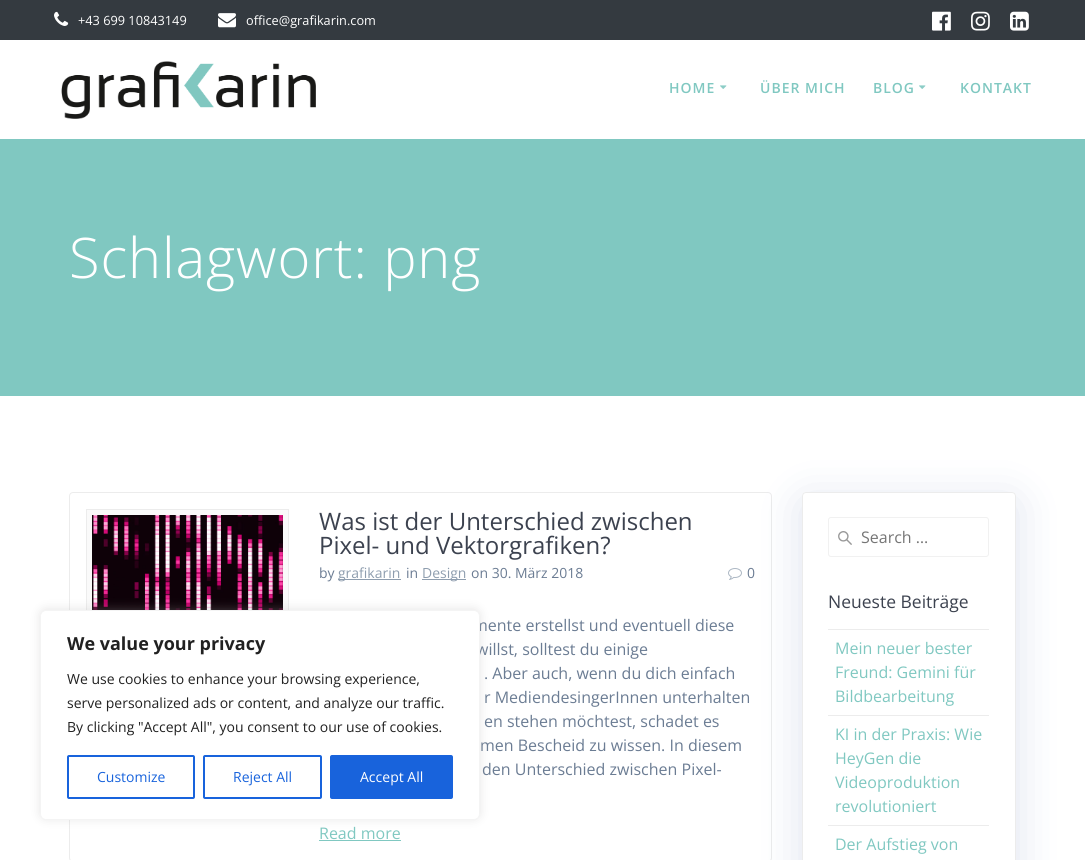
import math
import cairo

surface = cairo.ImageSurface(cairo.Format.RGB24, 1085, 860)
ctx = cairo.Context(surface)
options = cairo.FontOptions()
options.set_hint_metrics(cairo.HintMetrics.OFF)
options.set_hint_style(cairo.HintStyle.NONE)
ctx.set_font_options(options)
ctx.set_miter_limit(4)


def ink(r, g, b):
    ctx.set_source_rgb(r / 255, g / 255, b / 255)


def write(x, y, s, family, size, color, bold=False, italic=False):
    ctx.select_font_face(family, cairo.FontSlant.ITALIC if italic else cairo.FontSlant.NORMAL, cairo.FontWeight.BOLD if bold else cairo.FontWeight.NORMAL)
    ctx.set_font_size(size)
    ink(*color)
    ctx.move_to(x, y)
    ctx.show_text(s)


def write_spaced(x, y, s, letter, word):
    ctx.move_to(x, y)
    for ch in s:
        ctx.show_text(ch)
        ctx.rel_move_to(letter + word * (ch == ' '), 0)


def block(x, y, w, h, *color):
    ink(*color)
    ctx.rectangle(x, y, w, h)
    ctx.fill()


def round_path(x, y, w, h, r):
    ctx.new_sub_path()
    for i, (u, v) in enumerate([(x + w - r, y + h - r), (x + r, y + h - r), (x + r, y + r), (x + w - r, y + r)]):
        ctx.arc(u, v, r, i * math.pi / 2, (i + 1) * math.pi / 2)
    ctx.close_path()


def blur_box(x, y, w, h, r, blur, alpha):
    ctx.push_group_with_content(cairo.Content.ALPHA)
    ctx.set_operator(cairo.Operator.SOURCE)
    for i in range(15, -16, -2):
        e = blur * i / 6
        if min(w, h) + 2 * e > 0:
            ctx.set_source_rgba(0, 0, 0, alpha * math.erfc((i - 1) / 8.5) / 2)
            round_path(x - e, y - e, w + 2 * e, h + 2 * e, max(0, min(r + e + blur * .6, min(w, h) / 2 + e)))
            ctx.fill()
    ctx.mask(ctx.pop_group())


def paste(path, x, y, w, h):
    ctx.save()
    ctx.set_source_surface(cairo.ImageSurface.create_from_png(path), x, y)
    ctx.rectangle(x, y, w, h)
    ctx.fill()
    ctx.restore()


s1 = dict(family="Open Sans", size=12.75, color=(255, 255, 255))
s2 = dict(family="Open Sans", size=24, color=(60, 66, 79))
s3 = dict(family="Open Sans", size=14, color=(107, 124, 147))
s4 = dict(family="Open Sans", size=14, color=(142, 157, 174))
s5 = dict(family="Open Sans", size=16, color=(107, 124, 147))
s6 = dict(family="Open Sans", size=16, color=(128, 200, 193))
s7 = dict(family="Open Sans", size=16, color=(117, 117, 117))
s8 = dict(family="Open Sans", size=17.5, color=(60, 66, 79))
s9 = dict(family="Open Sans", size=18, color=(33, 33, 33), bold=True)
s10 = dict(family="Open Sans", size=14, color=(33, 33, 33))
s11 = dict(family="Open Sans", size=14, color=(24, 99, 220))
s12 = dict(family="Open Sans", size=14, color=(255, 255, 255))

ink(255, 255, 255)
ctx.paint()
block(0, 0, 1085, 40, 52, 58, 64)
paste("pic1.png", 54, 11, 15, 15)
write(78, 25, "+43 699 10843149", **s1)
paste("pic2.png", 218, 13, 18, 15)
write(246, 25, "office@grafikarin.com", **s1)
paste("pic3.png", 932, 11, 19, 20)
paste("pic4.png", 971, 11, 19, 20)
paste("pic5.png", 1010, 11, 19, 20)
paste("pic6.png", 61, 61, 255, 58)
ctx.select_font_face("Open Sans SemiBold")
ctx.set_font_size(14)
ink(128, 200, 193)
write_spaced(669, 93, "HOME", 1, 0)
paste("pic7.png", 720, 85, 7, 4)
write_spaced(760, 93, "ÜBER MICH", 1, 0)
write_spaced(873, 93, "BLOG", 1, 0)
paste("pic7.png", 919, 85, 7, 4)
write_spaced(960, 93, "KONTAKT", 1, 0)
block(0, 139, 1085, 257, 128, 200, 193)
ctx.select_font_face("Open Sans Light")
ctx.set_font_size(56)
ink(255, 255, 255)
write_spaced(69, 278, "Schlagwort: png", 0.9, 0)
round_path(69.5, 492.5, 702, 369, 3.5)
ink(236, 236, 236)
ctx.set_line_width(1)
ctx.stroke()
block(87, 510, 201, 100, 250, 250, 250)
ctx.rectangle(86.5, 509.5, 202, 121)
ink(236, 236, 236)
ctx.stroke()
paste("pic8.png", 92, 515, 191, 95)
write(319, 530, "Was ist der Unterschied zwischen", **s2)
write(319, 554, "Pixel- und Vektorgrafiken?", **s2)
write(319, 578, "by", **s3)
block(338, 579, 63, 1, 142, 157, 174)
write(338, 578, "grafikarin", **s4)
write(406, 578, "in", **s3)
block(422, 579, 44, 1, 142, 157, 174)
write(422, 578, "Design", **s4)
write(471, 578, "on 30. März 2018", **s3)
paste("pic9.png", 728, 568, 14, 12)
write(747, 578, "0", **s3)
write(473, 631, "mente erstellst und eventuell diese", **s5)
write(476, 655, "willst, solltest du einige", **s5)
write(484, 679, ". Aber auch, wenn du dich einfach", **s5)
write(484, 703, "r MediendesingerInnen unterhalten", **s5)
write(484, 727, "en stehen möchtest, schadet es", **s5)
write(480, 751, "men Bescheid zu wissen. In diesem", **s5)
write(482, 775, "den Unterschied zwischen Pixel-", **s5)
write(319, 839, "Read more", **s6)
block(319, 840, 82, 1, 128, 200, 193)
ctx.save()
ctx.set_fill_rule(cairo.FillRule.EVEN_ODD)
ctx.new_path()
ctx.move_to(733, 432)
ctx.line_to(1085, 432)
ctx.line_to(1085, 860)
ctx.line_to(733, 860)
ctx.close_path()
ctx.move_to(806, 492)
ctx.line_to(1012, 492)
ctx.curve_to(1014, 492, 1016, 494, 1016, 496)
ctx.line_to(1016, 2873)
ctx.curve_to(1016, 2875, 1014, 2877, 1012, 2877)
ctx.line_to(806, 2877)
ctx.curve_to(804, 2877, 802, 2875, 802, 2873)
ctx.line_to(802, 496)
ctx.curve_to(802, 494, 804, 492, 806, 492)
ctx.close_path()
ctx.clip()
ink(35, 69, 152)
blur_box(802, 501, 214, 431, 4, 22.5, 0.15)
ctx.restore()
round_path(802.5, 492.5, 213, 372, 3.5)
ink(236, 236, 236)
ctx.stroke()
paste("pic10.png", 838, 531, 14, 14)
round_path(828.5, 517.5, 160, 39, 2.5)
ink(241, 241, 241)
ctx.stroke()
write(861, 543, "Search …", **s7)
write(828, 608, "Neueste Beiträge", **s8)
block(828, 629, 161, 1, 236, 236, 236)
write(835, 654, "Mein neuer bester", **s6)
write(835, 678, "Freund: Gemini für", **s6)
write(835, 702, "Bildbearbeitung", **s6)
block(828, 715, 161, 1, 236, 236, 236)
write(835, 740, "KI in der Praxis: Wie", **s6)
write(835, 764, "HeyGen die", **s6)
write(835, 788, "Videoproduktion", **s6)
write(835, 812, "revolutioniert", **s6)
block(828, 825, 161, 1, 236, 236, 236)
write(835, 850, "Der Aufstieg von", **s6)
ink(172, 171, 171)
blur_box(40, 609, 440, 210, 6, 5, 0.3)
ink(255, 255, 255)
round_path(40.5, 610.5, 439, 209, 5.5)
ctx.fill_preserve()
ink(244, 244, 244)
ctx.stroke()
write(67, 650, "We value your privacy", **s9)
write(67, 684, "We use cookies to enhance your browsing experience,", **s10)
write(67, 708, "serve personalized ads or content, and analyze our traffic.", **s10)
write(67, 732, "By clicking \"Accept All\", you consent to our use of cookies.", **s10)
round_path(68, 756, 126, 42, 1)
ink(24, 99, 220)
ctx.set_line_width(2)
ctx.stroke()
write(97, 782, "Customize", **s11)
round_path(204, 756, 117, 42, 1)
ctx.stroke()
write(233, 782, "Reject All", **s11)
round_path(331, 756, 121, 42, 1)
ctx.fill_preserve()
ctx.stroke()
write(360, 782, "Accept All", **s12)
surface.write_to_png("screenshot.png")
